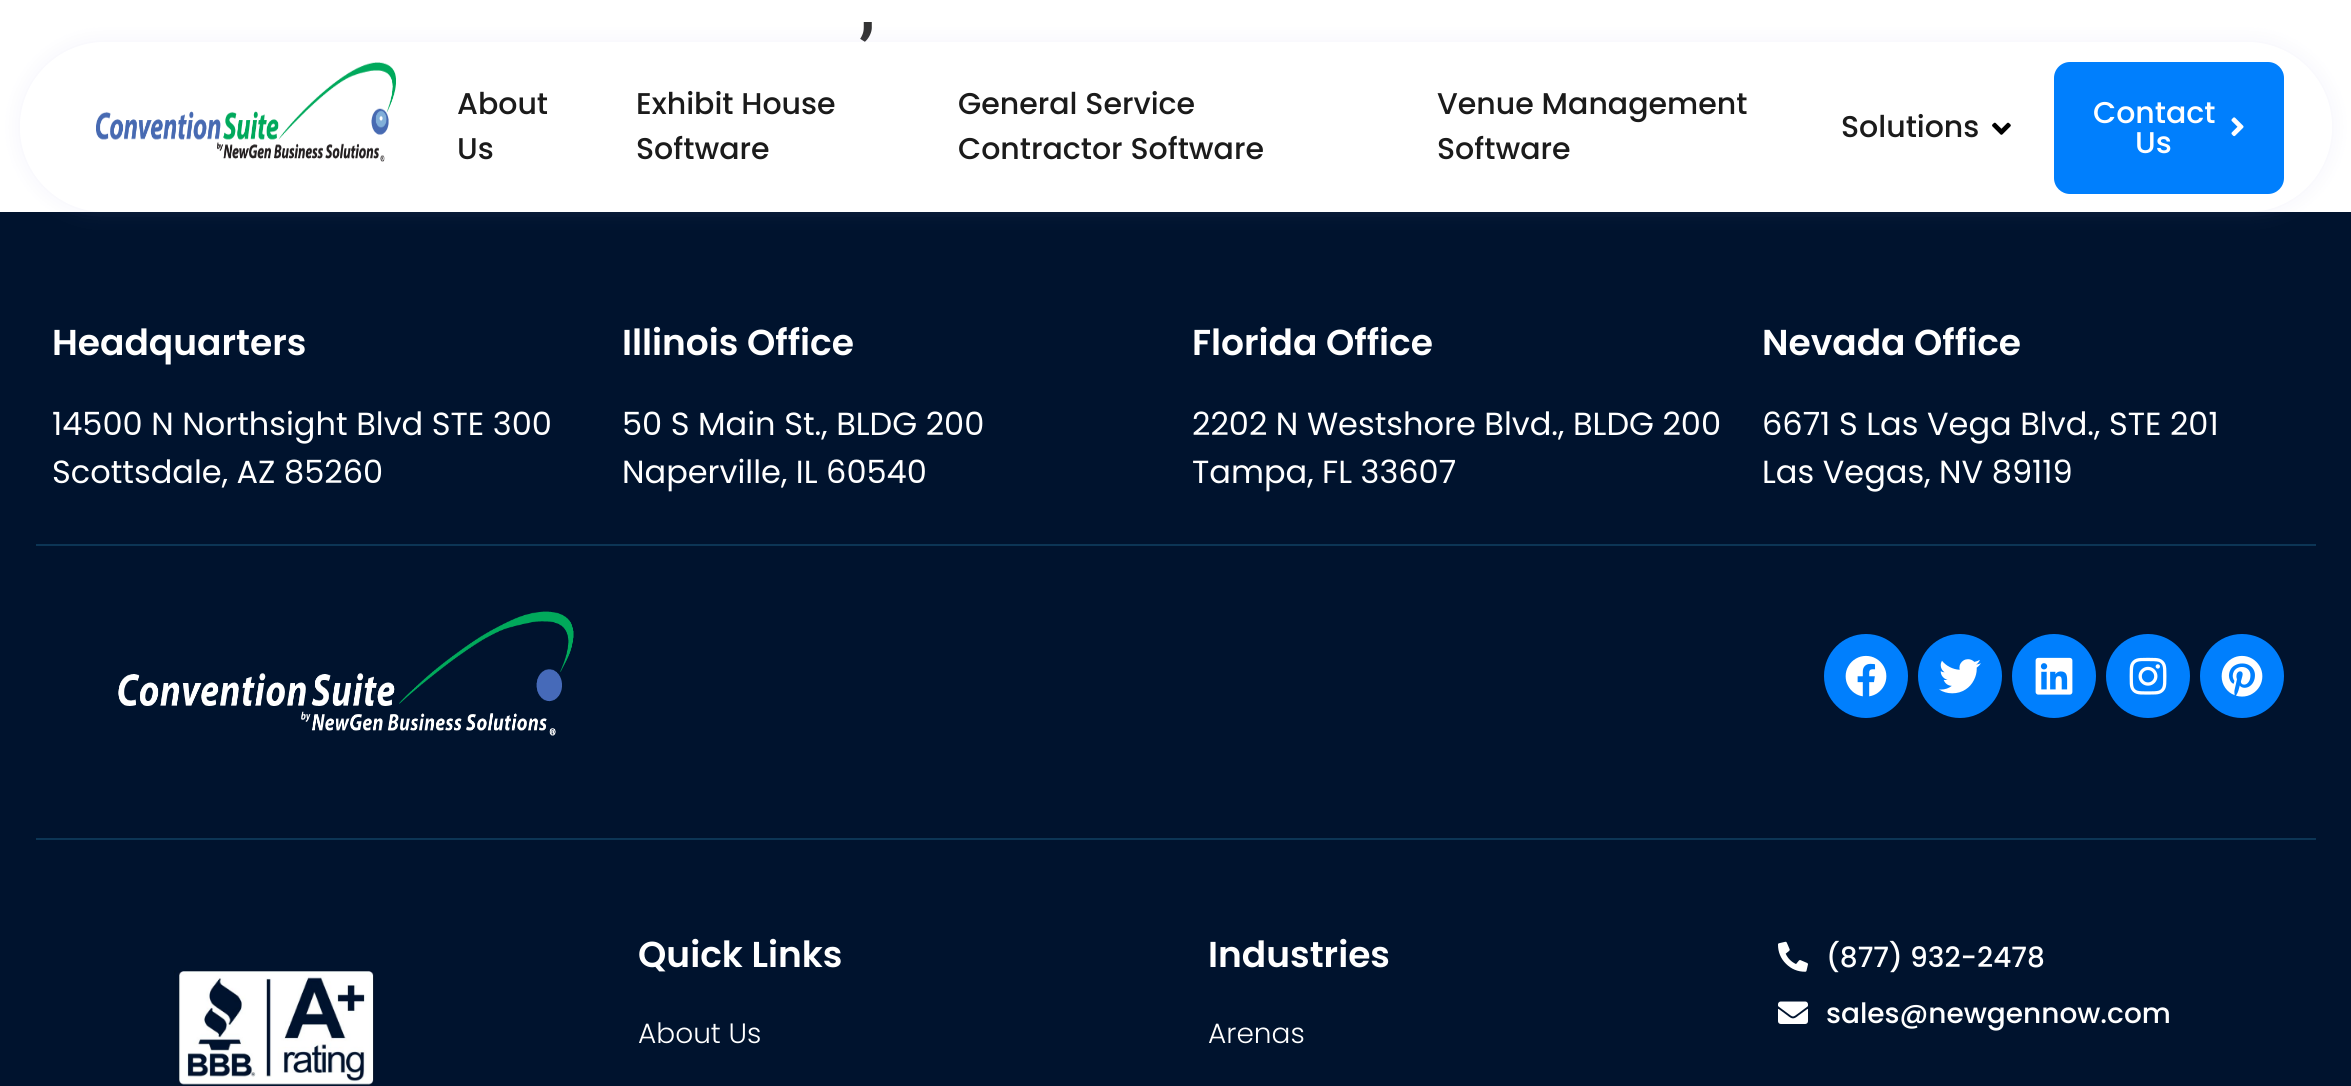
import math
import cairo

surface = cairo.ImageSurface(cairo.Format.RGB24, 2351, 1086)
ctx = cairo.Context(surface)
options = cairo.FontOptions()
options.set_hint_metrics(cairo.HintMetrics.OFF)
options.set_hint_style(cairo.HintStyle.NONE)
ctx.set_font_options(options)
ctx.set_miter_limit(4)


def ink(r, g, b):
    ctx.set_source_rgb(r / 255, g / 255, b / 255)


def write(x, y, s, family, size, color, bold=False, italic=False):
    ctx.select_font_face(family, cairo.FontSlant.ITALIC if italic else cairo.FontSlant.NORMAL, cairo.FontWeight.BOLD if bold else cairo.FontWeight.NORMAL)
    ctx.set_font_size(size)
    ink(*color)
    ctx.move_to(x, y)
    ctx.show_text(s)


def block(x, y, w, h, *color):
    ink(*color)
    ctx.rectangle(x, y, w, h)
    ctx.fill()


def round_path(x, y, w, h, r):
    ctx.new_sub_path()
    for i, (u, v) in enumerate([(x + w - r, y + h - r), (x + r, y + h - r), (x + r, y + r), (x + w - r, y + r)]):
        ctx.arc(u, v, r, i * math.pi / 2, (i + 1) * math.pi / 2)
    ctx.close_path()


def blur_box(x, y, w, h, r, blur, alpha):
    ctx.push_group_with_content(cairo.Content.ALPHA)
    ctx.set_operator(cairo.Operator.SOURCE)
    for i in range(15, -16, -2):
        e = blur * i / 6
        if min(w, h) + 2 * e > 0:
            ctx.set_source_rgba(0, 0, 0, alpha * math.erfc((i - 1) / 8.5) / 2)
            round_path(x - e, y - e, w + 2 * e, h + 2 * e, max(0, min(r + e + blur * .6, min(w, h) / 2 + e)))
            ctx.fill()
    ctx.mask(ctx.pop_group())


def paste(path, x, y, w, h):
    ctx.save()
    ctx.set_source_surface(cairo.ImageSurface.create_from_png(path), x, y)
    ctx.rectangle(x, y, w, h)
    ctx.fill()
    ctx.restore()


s1 = dict(family="Roboto Medium", size=80, color=(51, 51, 51))
s2 = dict(family="Poppins Medium", size=30, color=(27, 27, 27))
s3 = dict(family="Poppins Medium", size=30, color=(255, 255, 255))
s4 = dict(family="Poppins SemiBold", size=36, color=(255, 255, 255))
s5 = dict(family="Poppins", size=32, color=(255, 255, 255))
s6 = dict(family="Poppins Light", size=28, color=(255, 255, 255))
s7 = dict(family="Poppins Medium", size=28, color=(255, 255, 255))

ink(255, 255, 255)
ctx.paint()
write(858, 82, "’", **s1)
block(0, 212, 2351, 874, 0, 19, 46)
ctx.save()
ctx.set_fill_rule(cairo.FillRule.EVEN_ODD)
ctx.new_path()
ctx.move_to(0, 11)
ctx.line_to(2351, 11)
ctx.line_to(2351, 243)
ctx.line_to(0, 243)
ctx.close_path()
ctx.move_to(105, 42)
ctx.line_to(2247, 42)
ctx.curve_to(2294, 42, 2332, 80, 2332, 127)
ctx.curve_to(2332, 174, 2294, 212, 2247, 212)
ctx.line_to(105, 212)
ctx.curve_to(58, 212, 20, 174, 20, 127)
ctx.curve_to(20, 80, 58, 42, 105, 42)
ctx.close_path()
ctx.clip()
ink(158, 154, 221)
blur_box(20, 42, 2312, 170, 85, 10, 0.12)
ctx.restore()
paste("pic1.png", 96, 62, 300, 100)
write(457, 114, "About", **s2)
write(457, 159, "Us", **s2)
write(636, 114, "Exhibit House", **s2)
write(636, 159, "Software", **s2)
write(958, 114, "General Service", **s2)
write(958, 159, "Contractor Software", **s2)
write(1437, 114, "Venue Management", **s2)
write(1437, 159, "Software", **s2)
write(1841, 137, "Solutions", **s2)
paste("pic2.png", 1992, 122, 19, 13)
ink(0, 127, 253)
round_path(2054, 62, 230, 132, 16)
ctx.fill()
write(2093, 123, "Contact", **s3)
write(2135, 153, "Us", **s3)
paste("pic3.png", 2231, 117, 13, 20)
block(36, 544, 2280, 2, 12, 53, 85)
write(52, 355, "Headquarters", **s4)
write(52, 435, "14500 N Northsight Blvd STE 300", **s5)
write(52, 483, "Scottsdale, AZ 85260", **s5)
write(622, 355, "Illinois Office", **s4)
write(622, 435, "50 S Main St., BLDG 200", **s5)
write(622, 483, "Naperville, IL 60540", **s5)
write(1192, 355, "Florida Office", **s4)
write(1192, 435, "2202 N Westshore Blvd., BLDG 200", **s5)
write(1192, 483, "Tampa, FL 33607", **s5)
write(1762, 355, "Nevada Office", **s4)
write(1762, 435, "6671 S Las Vega Blvd., STE 201", **s5)
write(1762, 483, "Las Vegas, NV 89119", **s5)
block(36, 838, 2280, 2, 12, 53, 85)
paste("pic4.png", 118, 611, 456, 125)
ink(0, 127, 253)
ctx.arc(1866, 676, 42, 0, 2 * math.pi)
ctx.fill()
paste("pic5.png", 1845, 655, 42, 42)
ctx.arc(1960, 676, 42, 0, 2 * math.pi)
ctx.fill()
paste("pic6.png", 1939, 659, 42, 35)
ctx.arc(2054, 676, 42, 0, 2 * math.pi)
ctx.fill()
paste("pic7.png", 2035, 657, 38, 38)
ctx.arc(2148, 676, 42, 0, 2 * math.pi)
ctx.fill()
paste("pic8.png", 2129, 657, 38, 38)
ctx.arc(2242, 676, 42, 0, 2 * math.pi)
ctx.fill()
paste("pic9.png", 2221, 655, 42, 42)
paste("pic10.png", 174, 970, 200, 115)
write(638, 967, "Quick Links", **s4)
write(638, 1043, "About Us", **s6)
write(1208, 967, "Industries", **s4)
write(1208, 1043, "Arenas", **s6)
paste("pic11.png", 1778, 941, 30, 31)
write(1826, 967, "(877) 932-2478", **s7)
paste("pic12.png", 1778, 1001, 30, 23)
write(1826, 1023, "sales@newgennow.com", **s7)
surface.write_to_png("screenshot.png")
